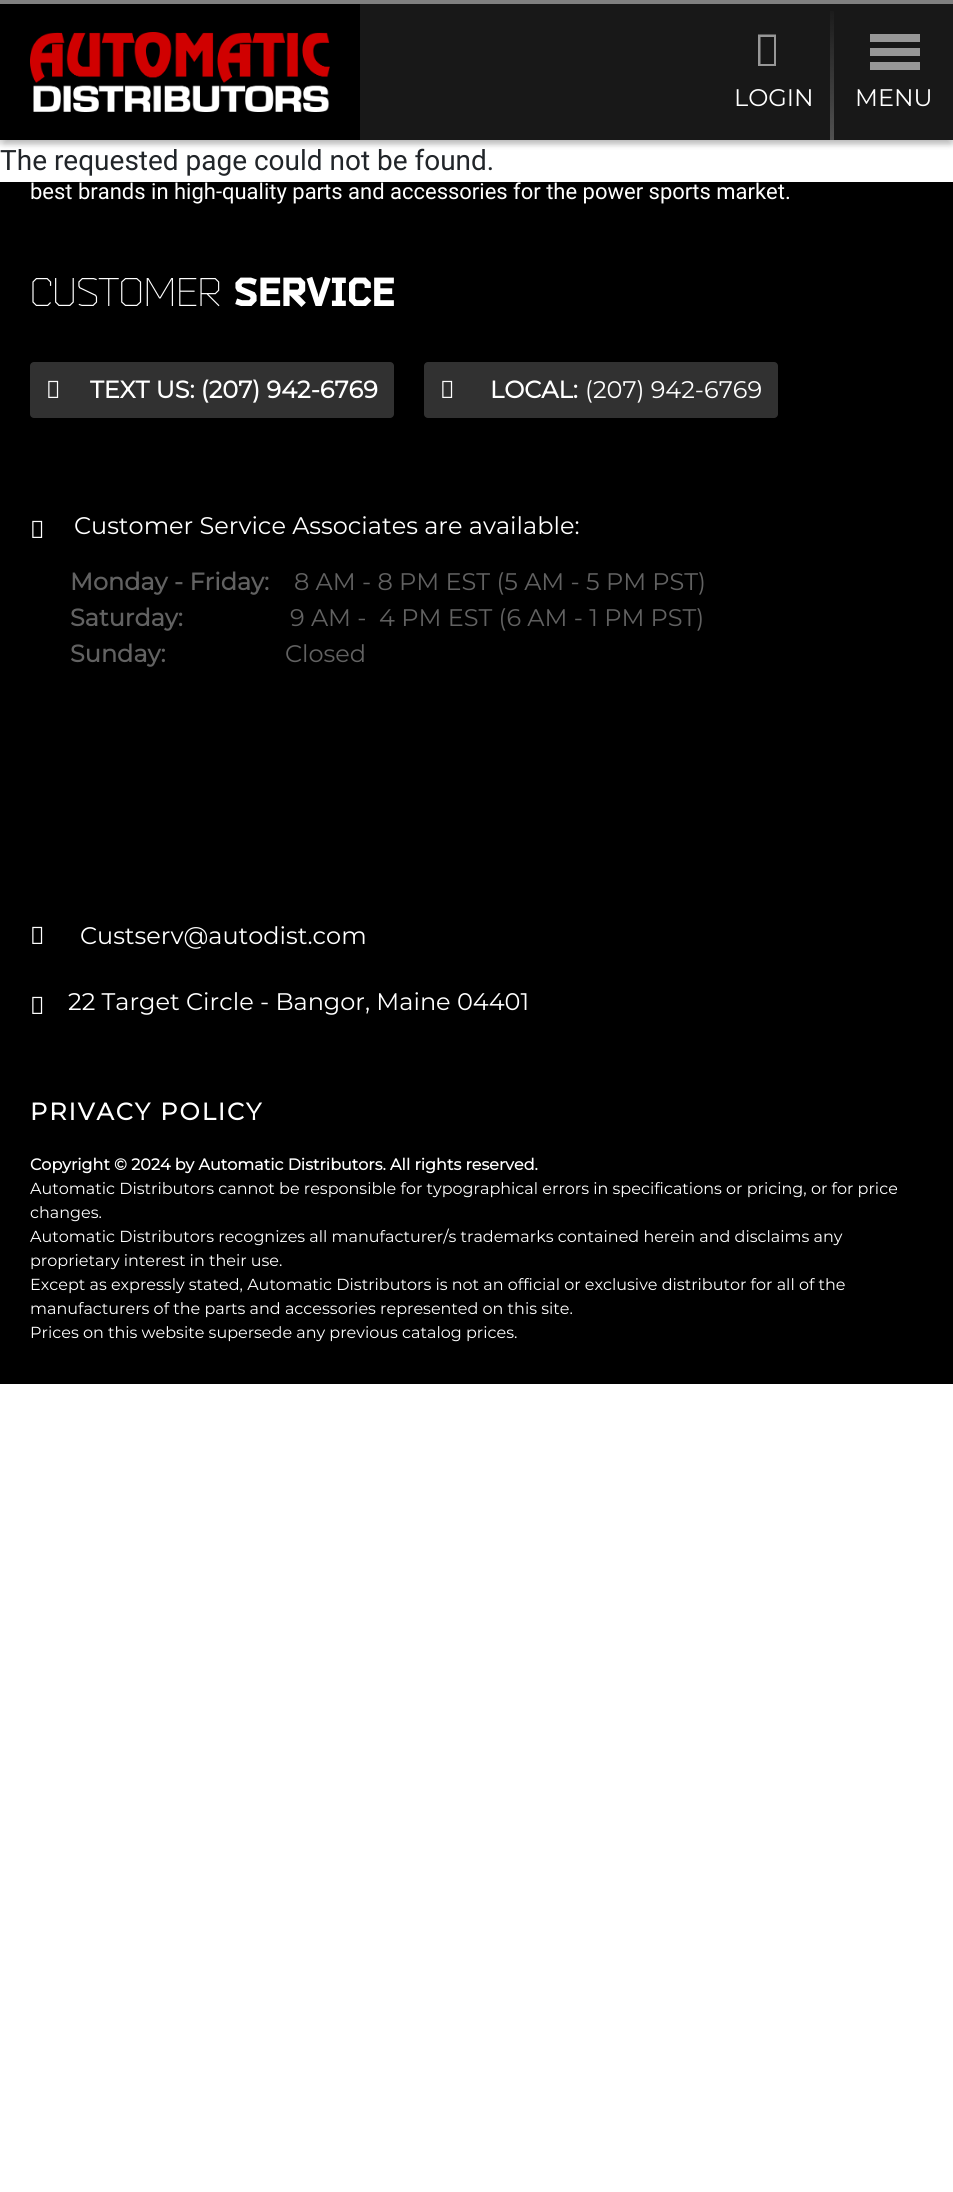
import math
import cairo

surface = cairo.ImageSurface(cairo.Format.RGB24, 953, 2192)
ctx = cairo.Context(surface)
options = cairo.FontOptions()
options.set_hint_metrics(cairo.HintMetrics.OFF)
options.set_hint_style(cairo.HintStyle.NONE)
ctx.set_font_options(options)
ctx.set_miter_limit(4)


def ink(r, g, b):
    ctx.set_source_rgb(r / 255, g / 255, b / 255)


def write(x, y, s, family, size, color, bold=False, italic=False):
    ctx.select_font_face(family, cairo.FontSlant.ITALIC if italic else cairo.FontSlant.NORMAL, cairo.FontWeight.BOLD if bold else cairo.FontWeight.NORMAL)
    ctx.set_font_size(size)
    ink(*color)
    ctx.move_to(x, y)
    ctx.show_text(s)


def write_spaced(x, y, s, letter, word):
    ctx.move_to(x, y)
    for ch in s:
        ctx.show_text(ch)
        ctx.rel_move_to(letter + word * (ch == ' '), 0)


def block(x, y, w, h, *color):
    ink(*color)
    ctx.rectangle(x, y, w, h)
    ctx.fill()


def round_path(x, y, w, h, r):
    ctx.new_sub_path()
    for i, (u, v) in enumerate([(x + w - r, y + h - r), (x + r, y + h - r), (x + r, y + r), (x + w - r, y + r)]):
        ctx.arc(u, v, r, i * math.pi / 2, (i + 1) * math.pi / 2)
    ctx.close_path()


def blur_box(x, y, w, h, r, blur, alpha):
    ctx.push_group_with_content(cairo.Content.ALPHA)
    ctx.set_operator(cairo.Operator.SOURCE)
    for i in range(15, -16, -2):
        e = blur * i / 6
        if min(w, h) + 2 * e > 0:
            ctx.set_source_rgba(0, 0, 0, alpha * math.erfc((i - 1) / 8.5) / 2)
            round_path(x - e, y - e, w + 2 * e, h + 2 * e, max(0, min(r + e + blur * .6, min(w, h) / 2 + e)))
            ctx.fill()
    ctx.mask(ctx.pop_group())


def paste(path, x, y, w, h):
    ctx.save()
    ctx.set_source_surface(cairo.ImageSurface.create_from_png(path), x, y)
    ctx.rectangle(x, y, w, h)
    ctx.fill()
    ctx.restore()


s1 = dict(family="Montserrat Thin", size=24, color=(255, 255, 255))
s2 = dict(family="Roboto", size=22, color=(255, 255, 255))
s3 = dict(family="Roboto", size=28, color=(33, 37, 41))
s4 = dict(family="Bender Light", size=40, color=(255, 255, 255))
s5 = dict(family="Bender Black", size=40, color=(255, 255, 255))
s6 = dict(family="Montserrat", size=24, color=(255, 255, 255), bold=True)
s7 = dict(family="Montserrat", size=24, color=(98, 98, 98), bold=True)
s8 = dict(family="Montserrat Thin", size=24, color=(98, 98, 98))
s9 = dict(family="Montserrat", size=16, color=(255, 255, 255), bold=True)
s10 = dict(family="Montserrat Thin", size=16, color=(255, 255, 255))

ink(255, 255, 255)
ctx.paint()
ink(0, 0, 0)
blur_box(-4, 4, 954, 140, 0, 3, 0.15)
blur_box(4, 4, 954, 140, 0, 3, 0.15)
block(0, 4, 360, 136, 0, 0, 0)
block(0, 0, 953, 4, 128, 128, 128)
paste("pic1.png", 30, 32, 300, 80)
block(360, 4, 593, 136, 24, 24, 24)
ink(151, 151, 151)
ctx.new_path()
ctx.move_to(758, 66)
ctx.line_to(758, 34.5)
ctx.line_to(776, 34.5)
ctx.line_to(776, 66)
ctx.close_path()
ctx.move_to(760.5, 64)
ctx.line_to(774, 64)
ctx.line_to(774, 37)
ctx.line_to(760.5, 37)
ctx.close_path()
ctx.fill()
write(734, 106, "LOGIN", **s1)
paste("pic2.png", 830, 11, 4, 129)
block(870, 34, 50, 8, 151, 151, 151)
block(870, 48, 50, 8, 151, 151, 151)
block(870, 62, 50, 8, 151, 151, 151)
write(855, 106, "MENU", **s1)
block(0, 182, 953, 1202, 0, 0, 0)
write(30, 199, "best brands in high-quality parts and accessories for the power sports market.", **s2)
write(0, 170, "The requested page could not be found.", **s3)
write(30, 306, "CUSTOMER", **s4)
write(234, 306, "SERVICE", **s5)
ink(49, 49, 49)
round_path(30, 362, 364, 56, 4)
ctx.fill()
paste("pic3.png", 48, 380, 11, 18)
write(90, 398, "TEXT US: (207) 942-6769", **s6)
ink(49, 49, 49)
round_path(424, 362, 354, 56, 4)
ctx.fill()
paste("pic3.png", 442, 380, 11, 18)
write(490, 398, "LOCAL:", **s6)
write(585, 398, "(207) 942-6769", **s1)
paste("pic4.png", 32, 520, 11, 18)
write(74, 534, "Customer Service Associates are available:", **s1)
write(70, 590, "Monday - Friday:", **s7)
write(294, 590, "8 AM - 8 PM EST (5 AM - 5 PM PST)", **s8)
write(70, 626, "Saturday:", **s7)
write(290, 626, "9 AM -  4 PM EST (6 AM - 1 PM PST)", **s8)
write(70, 662, "Sunday:", **s7)
write(285, 662, "Closed", **s8)
paste("pic4.png", 32, 926, 11, 18)
write(80, 944, "Custserv@autodist.com", **s1)
paste("pic4.png", 32, 996, 11, 18)
write(68, 1010, "22 Target Circle - Bangor, Maine 04401", **s1)
ctx.select_font_face("Montserrat", cairo.FontSlant.NORMAL, cairo.FontWeight.BOLD)
write_spaced(30, 1120, "PRIVACY POLICY", 2, 0)
write(30, 1170, "Copyright © 2024 by Automatic Distributors. All rights reserved.", **s9)
write(30, 1194, "Automatic Distributors cannot be responsible for typographical errors in specifications or pricing, or for price", **s10)
write(30, 1218, "changes.", **s10)
write(30, 1242, "Automatic Distributors recognizes all manufacturer/s trademarks contained herein and disclaims any", **s10)
write(30, 1266, "proprietary interest in their use.", **s10)
write(30, 1290, "Except as expressly stated, Automatic Distributors is not an official or exclusive distributor for all of the", **s10)
write(30, 1314, "manufacturers of the parts and accessories represented on this site.", **s10)
write(30, 1338, "Prices on this website supersede any previous catalog prices.", **s10)
surface.write_to_png("screenshot.png")
